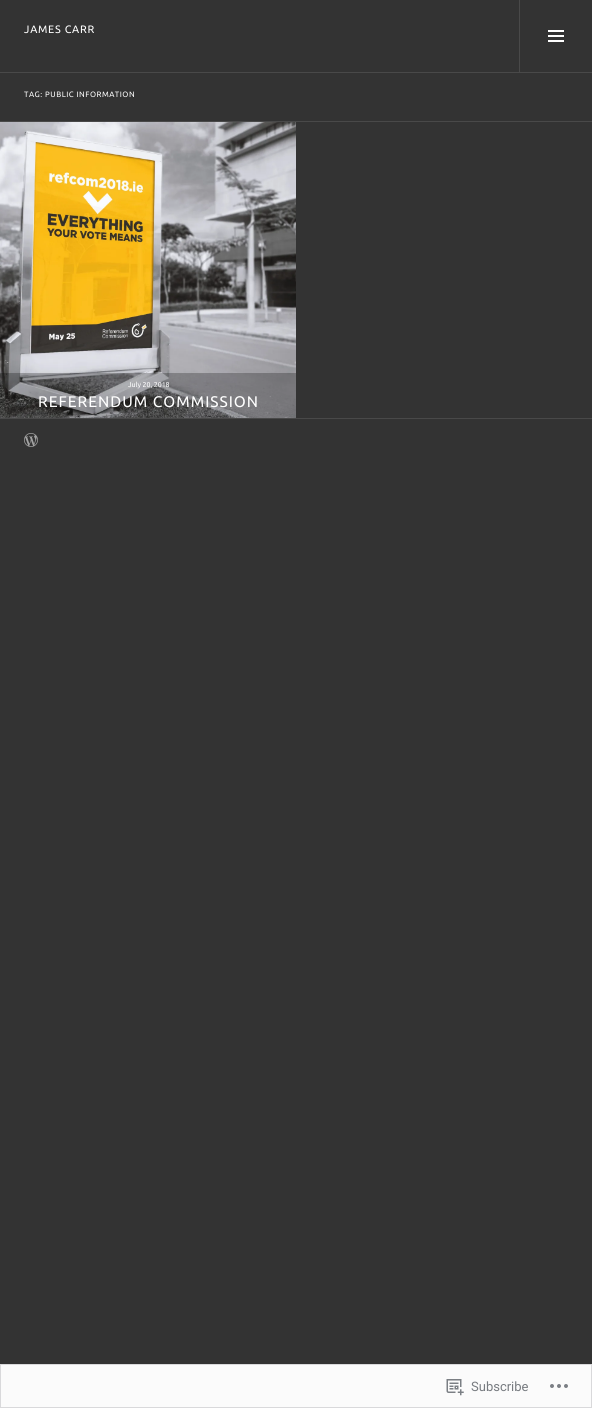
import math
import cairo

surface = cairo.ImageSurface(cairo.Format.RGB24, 592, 1408)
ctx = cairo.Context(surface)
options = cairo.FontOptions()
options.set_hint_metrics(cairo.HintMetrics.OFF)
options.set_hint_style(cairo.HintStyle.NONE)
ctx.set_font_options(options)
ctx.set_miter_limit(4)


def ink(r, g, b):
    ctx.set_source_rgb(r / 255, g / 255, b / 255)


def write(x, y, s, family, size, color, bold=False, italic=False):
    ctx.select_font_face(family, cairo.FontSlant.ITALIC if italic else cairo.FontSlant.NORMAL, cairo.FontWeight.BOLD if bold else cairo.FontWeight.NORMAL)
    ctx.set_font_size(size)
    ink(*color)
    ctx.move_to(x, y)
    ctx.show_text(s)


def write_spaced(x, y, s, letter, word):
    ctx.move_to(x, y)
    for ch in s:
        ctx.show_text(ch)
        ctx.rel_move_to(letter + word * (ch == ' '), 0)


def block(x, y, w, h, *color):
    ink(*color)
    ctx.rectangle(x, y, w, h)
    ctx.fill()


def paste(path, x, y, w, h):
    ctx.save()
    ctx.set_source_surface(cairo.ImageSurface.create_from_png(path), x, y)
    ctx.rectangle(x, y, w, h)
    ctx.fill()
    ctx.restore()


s1 = dict(family="Ubuntu", size=7, color=(255, 255, 255))
s2 = dict(family="Roboto", size=13, color=(119, 123, 128))

ink(51, 51, 51)
ctx.paint()
block(0, 72, 592, 1, 73, 73, 73)
ctx.select_font_face("Ubuntu")
ctx.set_font_size(10.75)
ink(255, 255, 255)
write_spaced(24, 33, "JAMES CARR", 0.75, 0)
block(519, 0, 1, 72, 73, 73, 73)
paste("pic1.png", 548, 30, 16, 12)
block(0, 121, 592, 1, 73, 73, 73)
ctx.set_font_size(7.8)
ink(255, 255, 255)
write_spaced(24, 97, "TAG: PUBLIC INFORMATION", 0.5, 0)
paste("pic2.png", 0, 122, 296, 296)
ctx.set_source_rgba(0, 0, 0, 0.25)
ctx.rectangle(0, 373, 296, 45)
ctx.fill()
write(128, 387, "July 20, 2018", **s1)
ctx.set_font_size(15.4)
write_spaced(38, 407, "REFERENDUM COMMISSION", 1, 0)
block(0, 418, 592, 1, 73, 73, 73)
paste("pic3.png", 24, 433, 14, 14)
ink(251, 251, 251)
ctx.rectangle(0.5, 1364.5, 591, 43)
ctx.fill_preserve()
ink(217, 217, 219)
ctx.set_line_width(1)
ctx.stroke()
paste("pic4.png", 446, 1379, 18, 17)
write(471, 1391, "Subscribe", **s2)
paste("pic5.png", 550, 1384, 18, 4)
surface.write_to_png("screenshot.png")
